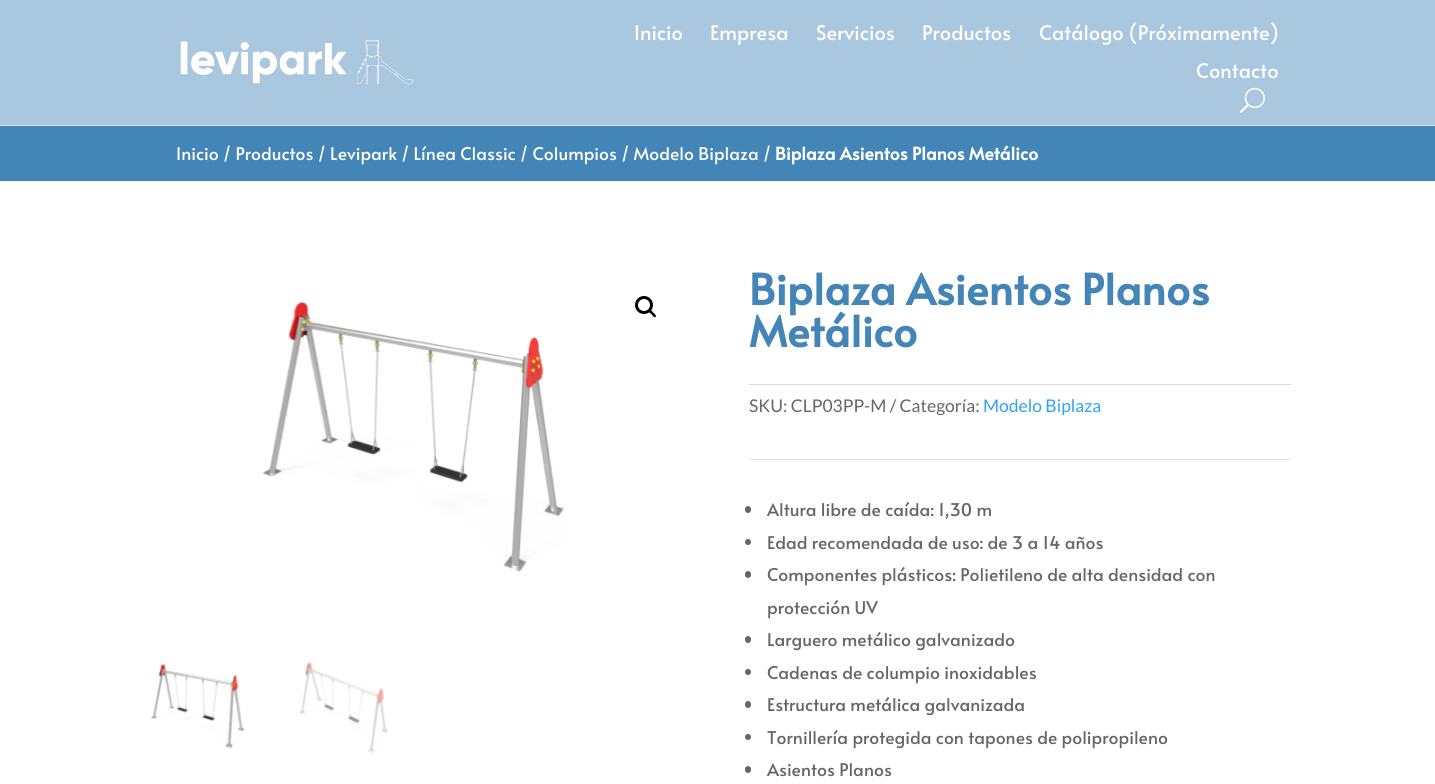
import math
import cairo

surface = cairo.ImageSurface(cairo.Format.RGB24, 1435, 784)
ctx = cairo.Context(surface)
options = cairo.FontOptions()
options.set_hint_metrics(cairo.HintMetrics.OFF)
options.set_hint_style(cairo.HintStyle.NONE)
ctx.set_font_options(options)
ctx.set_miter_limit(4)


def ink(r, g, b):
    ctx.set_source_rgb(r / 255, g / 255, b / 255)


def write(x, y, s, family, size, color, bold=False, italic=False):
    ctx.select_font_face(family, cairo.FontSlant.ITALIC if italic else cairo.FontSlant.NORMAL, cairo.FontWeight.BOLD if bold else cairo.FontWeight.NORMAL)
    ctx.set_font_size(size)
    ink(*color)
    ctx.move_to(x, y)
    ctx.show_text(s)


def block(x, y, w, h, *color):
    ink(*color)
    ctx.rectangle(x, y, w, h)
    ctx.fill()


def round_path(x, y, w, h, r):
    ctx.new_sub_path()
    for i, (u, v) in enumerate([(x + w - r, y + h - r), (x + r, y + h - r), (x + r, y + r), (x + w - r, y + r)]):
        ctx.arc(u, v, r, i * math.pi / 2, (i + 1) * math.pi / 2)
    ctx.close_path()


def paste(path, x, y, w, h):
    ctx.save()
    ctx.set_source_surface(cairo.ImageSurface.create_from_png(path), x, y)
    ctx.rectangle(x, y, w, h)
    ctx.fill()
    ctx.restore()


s1 = dict(family="Alata", size=20, color=(255, 255, 255))
s2 = dict(family="Alata", size=17.5, color=(255, 255, 255))
s3 = dict(family="Alata", size=17.5, color=(255, 255, 255), bold=True)
s4 = dict(family="Alata", size=42.5, color=(67, 133, 182), bold=True)
s5 = dict(family="Lato", size=17.5, color=(102, 102, 102))
s6 = dict(family="Lato", size=17.5, color=(46, 163, 242))
s7 = dict(family="Alata", size=17.5, color=(102, 102, 102))

ink(255, 255, 255)
ctx.paint()
block(0, 0, 1435, 125, 169, 200, 223)
block(0, 125, 1435, 1, 219, 219, 219)
paste("pic1.png", 180, 40, 234, 45)
write(634, 40, "Inicio", **s1)
write(710, 40, "Empresa", **s1)
write(816, 40, "Servicios", **s1)
write(922, 40, "Productos", **s1)
write(1039, 40, "Catálogo (Próximamente)", **s1)
write(1196, 78, "Contacto", **s1)
paste("pic2.png", 1240, 87, 25, 26)
block(0, 126, 1435, 55, 67, 133, 182)
write(176, 160, "Inicio / Productos / Levipark / Línea Classic / Columpios / Modelo Biplaza /", **s2)
write(775, 160, "Biplaza Asientos Planos Metálico", **s3)
paste("pic3.png", 262, 301, 305, 271)
ctx.arc(644, 305, 7.5, 0, 2 * math.pi)
ink(0, 0, 0)
ctx.set_line_width(3)
ctx.stroke()
ctx.new_path()
ctx.move_to(648.5, 310)
ctx.curve_to(650, 308.5, 652.5, 311.5, 653, 312.5)
ctx.curve_to(654, 313, 657, 315.5, 655.5, 317)
ctx.curve_to(654.5, 318.5, 652, 315, 651.5, 314)
ctx.curve_to(650.5, 313.5, 647, 311, 648.5, 310)
ctx.close_path()
ctx.fill()
paste("pic4.png", 150, 663, 95, 86)
paste("pic5.png", 299, 662, 89, 92)
write(749, 305, "Biplaza Asientos Planos", **s4)
write(749, 347, "Metálico", **s4)
block(749, 384, 542, 1, 218, 218, 218)
write(749, 412, "SKU: CLP03PP-M / Categoría:", **s5)
write(983, 412, "Modelo Biplaza", **s6)
block(749, 459, 542, 1, 226, 226, 226)
ink(102, 102, 102)
round_path(745, 506, 6, 7, 3)
ctx.fill()
write(767, 516, "Altura libre de caída: 1,30 m", **s7)
ctx.new_path()
ctx.arc(748, 542, 3, 0, 2 * math.pi)
ctx.fill()
write(767, 549, "Edad recomendada de uso: de 3 a 14 años", **s7)
round_path(745, 571, 6, 7, 3)
ctx.fill()
write(767, 581, "Componentes plásticos: Polietileno de alta densidad con", **s7)
write(767, 614, "protección UV", **s7)
round_path(745, 636, 6, 7, 3)
ctx.fill()
write(767, 646, "Larguero metálico galvanizado", **s7)
ctx.new_path()
ctx.arc(748, 672, 3, 0, 2 * math.pi)
ctx.fill()
write(767, 679, "Cadenas de columpio inoxidables", **s7)
round_path(745, 701, 6, 7, 3)
ctx.fill()
write(767, 711, "Estructura metálica galvanizada", **s7)
ctx.new_path()
ctx.arc(748, 737, 3, 0, 2 * math.pi)
ctx.fill()
write(767, 744, "Tornillería protegida con tapones de polipropileno", **s7)
round_path(745, 766, 6, 7, 3)
ctx.fill()
write(767, 776, "Asientos Planos", **s7)
surface.write_to_png("screenshot.png")
